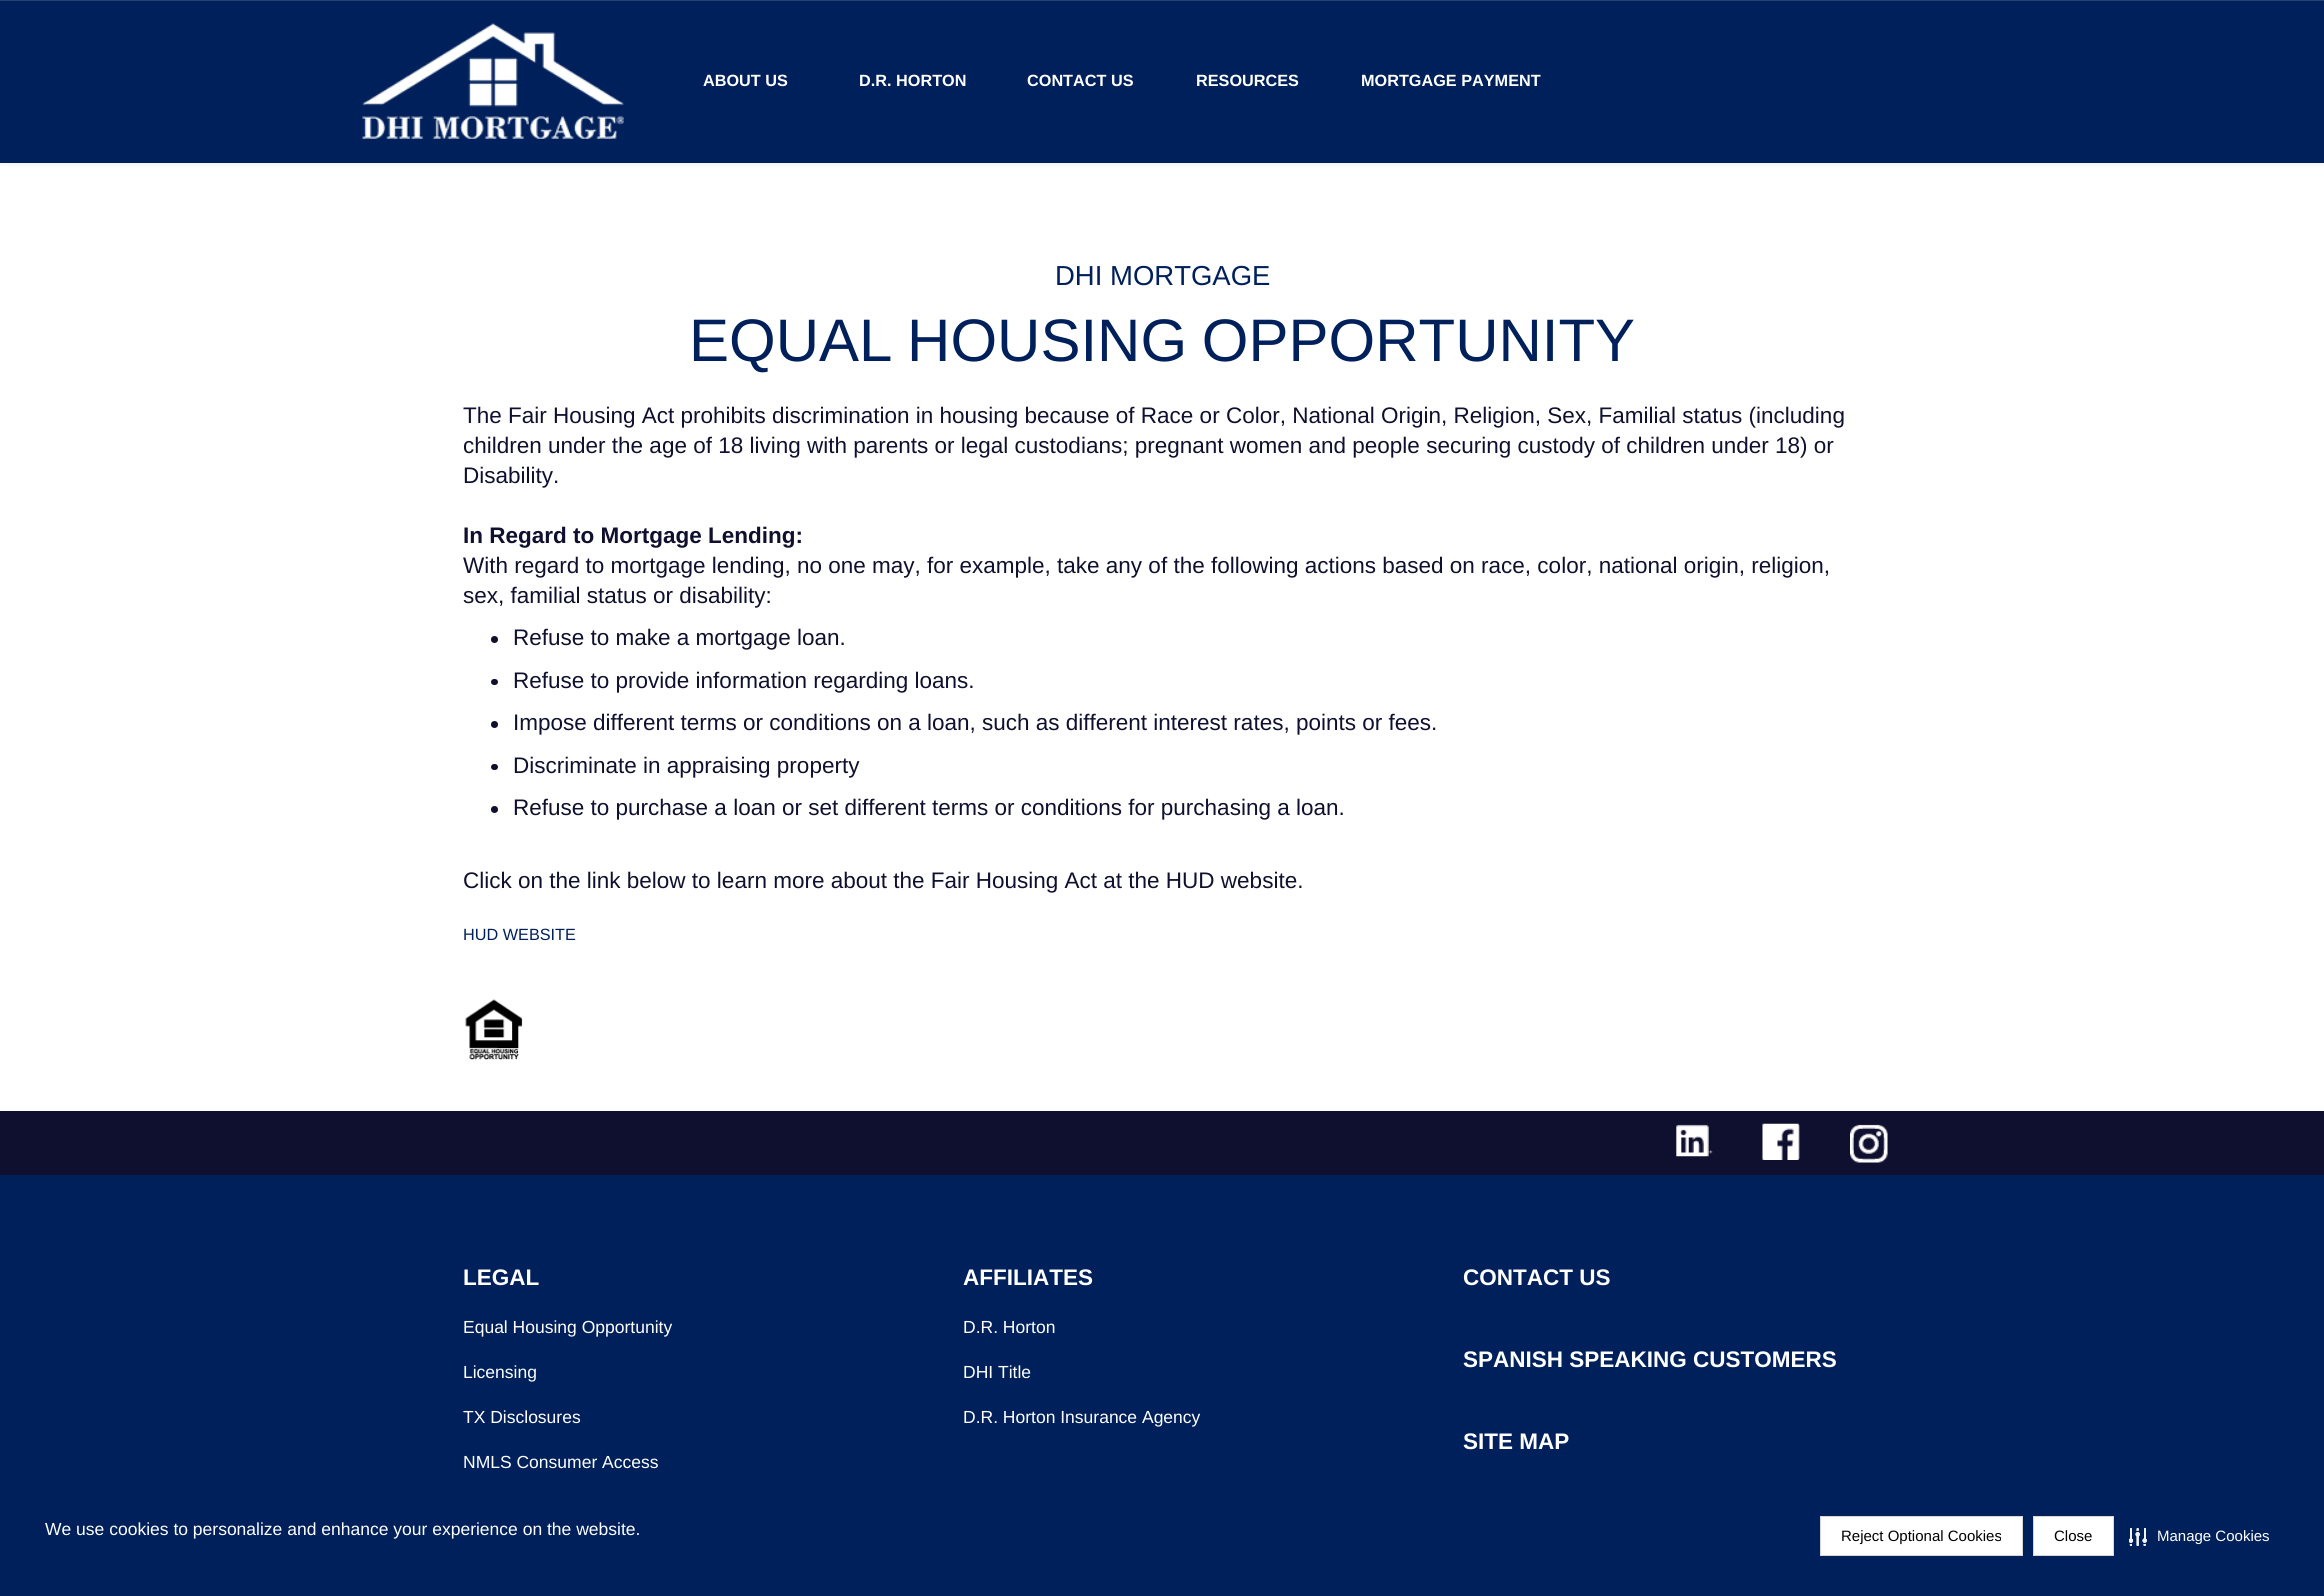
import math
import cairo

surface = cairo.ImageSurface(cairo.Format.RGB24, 2324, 1596)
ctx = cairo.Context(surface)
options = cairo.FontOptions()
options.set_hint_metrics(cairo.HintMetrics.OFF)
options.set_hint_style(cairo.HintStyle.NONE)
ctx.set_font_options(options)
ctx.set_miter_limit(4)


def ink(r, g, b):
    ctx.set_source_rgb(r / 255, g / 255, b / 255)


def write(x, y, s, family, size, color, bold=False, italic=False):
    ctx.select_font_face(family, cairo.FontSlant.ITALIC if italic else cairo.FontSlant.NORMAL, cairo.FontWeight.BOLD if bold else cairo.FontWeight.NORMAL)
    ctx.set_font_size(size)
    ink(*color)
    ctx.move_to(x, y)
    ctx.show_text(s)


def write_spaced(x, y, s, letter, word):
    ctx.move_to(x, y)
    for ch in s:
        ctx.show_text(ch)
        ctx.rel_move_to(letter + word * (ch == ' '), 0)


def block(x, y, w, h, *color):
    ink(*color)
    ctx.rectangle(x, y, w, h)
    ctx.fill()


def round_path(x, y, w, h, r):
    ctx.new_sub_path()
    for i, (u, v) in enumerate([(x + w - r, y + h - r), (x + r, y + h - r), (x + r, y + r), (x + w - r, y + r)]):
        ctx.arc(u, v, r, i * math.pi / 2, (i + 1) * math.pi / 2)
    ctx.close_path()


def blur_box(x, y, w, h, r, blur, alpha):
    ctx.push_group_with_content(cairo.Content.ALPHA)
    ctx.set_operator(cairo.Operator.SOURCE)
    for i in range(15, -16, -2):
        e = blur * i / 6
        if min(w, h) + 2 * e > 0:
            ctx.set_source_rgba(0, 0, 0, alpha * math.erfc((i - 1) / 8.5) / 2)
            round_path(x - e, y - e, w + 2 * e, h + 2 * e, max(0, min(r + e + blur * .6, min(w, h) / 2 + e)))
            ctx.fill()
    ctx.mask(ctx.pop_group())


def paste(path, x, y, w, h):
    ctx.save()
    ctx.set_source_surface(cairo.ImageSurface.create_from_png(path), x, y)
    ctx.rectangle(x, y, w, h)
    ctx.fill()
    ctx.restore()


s1 = dict(family="Liberation Sans", size=16.25, color=(255, 255, 255), bold=True)
s2 = dict(family="Liberation Sans", size=27.5, color=(0, 32, 91))
s3 = dict(family="Liberation Sans", size=22.5, color=(15, 15, 47))
s4 = dict(family="Liberation Sans", size=22.5, color=(15, 15, 47), bold=True)
s5 = dict(family="Liberation Sans", size=16.25, color=(0, 32, 91))
s6 = dict(family="Liberation Sans", size=22.5, color=(255, 255, 255), bold=True)
s7 = dict(family="Liberation Sans", size=17.5, color=(255, 255, 255))
s8 = dict(family="Liberation Sans", size=15, color=(0, 0, 0))
s9 = dict(family="Liberation Sans", size=15, color=(255, 255, 255))

ink(255, 255, 255)
ctx.paint()
block(0, 1, 2324, 162, 0, 32, 91)
ctx.save()
ctx.set_fill_rule(cairo.FillRule.EVEN_ODD)
ctx.new_path()
ctx.move_to(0, 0)
ctx.line_to(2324, 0)
ctx.line_to(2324, 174)
ctx.line_to(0, 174)
ctx.close_path()
ctx.move_to(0, 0)
ctx.line_to(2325, 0)
ctx.line_to(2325, 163)
ctx.line_to(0, 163)
ctx.close_path()
ctx.clip()
ink(0, 0, 0)
blur_box(0, 1, 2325, 163, 0, 3, 0.07)
ctx.restore()
block(0, 0, 2324, 1, 38, 65, 116)
paste("pic1.png", 362, 23, 262, 116)
write(703, 86, "ABOUT US", **s1)
write(859, 86, "D.R. HORTON", **s1)
write(1027, 86, "CONTACT US", **s1)
write(1196, 86, "RESOURCES", **s1)
write(1361, 86, "MORTGAGE PAYMENT", **s1)
write(1055, 285, "DHI MORTGAGE", **s2)
ctx.set_font_size(60)
write_spaced(689, 361, "EQUAL HOUSING OPPORTUNITY", 0, -2)
write(463, 423, "The Fair Housing Act prohibits discrimination in housing because of Race or Color, National Origin, Religion, Sex, Familial status (including", **s3)
write(463, 453, "children under the age of 18 living with parents or legal custodians; pregnant women and people securing custody of children under 18) or", **s3)
write(463, 483, "Disability.", **s3)
write(463, 543, "In Regard to Mortgage Lending:", **s4)
write(463, 573, "With regard to mortgage lending, no one may, for example, take any of the following actions based on race, color, national origin, religion,", **s3)
write(463, 603, "sex, familial status or disability:", **s3)
ctx.new_path()
ctx.arc(494.5, 639.5, 3.5, 0, 2 * math.pi)
ctx.fill()
write(513, 645, "Refuse to make a mortgage loan.", **s3)
round_path(491, 679, 7, 6, 3)
ctx.fill()
write(513, 688, "Refuse to provide information regarding loans.", **s3)
ctx.new_path()
ctx.arc(494.5, 724.5, 3.5, 0, 2 * math.pi)
ctx.fill()
write(513, 730, "Impose different terms or conditions on a loan, such as different interest rates, points or fees.", **s3)
round_path(491, 764, 7, 6, 3)
ctx.fill()
write(513, 773, "Discriminate in appraising property", **s3)
ctx.new_path()
ctx.arc(494.5, 809.5, 3.5, 0, 2 * math.pi)
ctx.fill()
write(513, 815, "Refuse to purchase a loan or set different terms or conditions for purchasing a loan.", **s3)
write(463, 888, "Click on the link below to learn more about the Fair Housing Act at the HUD website.", **s3)
write(463, 940, "HUD WEBSITE", **s5)
paste("pic2.png", 465, 999, 58, 61)
block(0, 1111, 2324, 64, 15, 15, 47)
paste("pic3.png", 1676, 1124, 37, 33)
paste("pic4.png", 1762, 1123, 38, 37)
paste("pic5.png", 1850, 1124, 38, 39)
block(0, 1175, 2324, 421, 0, 32, 91)
write(463, 1285, "LEGAL", **s6)
write(463, 1333, "Equal Housing Opportunity", **s7)
write(463, 1378, "Licensing", **s7)
write(463, 1423, "TX Disclosures", **s7)
write(463, 1468, "NMLS Consumer Access", **s7)
write(963, 1285, "AFFILIATES", **s6)
write(963, 1333, "D.R. Horton", **s7)
write(963, 1378, "DHI Title", **s7)
write(963, 1423, "D.R. Horton Insurance Agency", **s7)
write(1463, 1285, "CONTACT US", **s6)
write(1463, 1367, "SPANISH SPEAKING CUSTOMERS", **s6)
write(1463, 1449, "SITE MAP", **s6)
write(45, 1535, "We use cookies to personalize and enhance your experience on the website.", **s7)
ctx.rectangle(1820.5, 1516.5, 202, 39)
ctx.fill_preserve()
ink(215, 215, 215)
ctx.set_line_width(1)
ctx.stroke()
write(1841, 1541, "Reject Optional Cookies", **s8)
ink(255, 255, 255)
ctx.rectangle(2033.5, 1516.5, 80, 39)
ctx.fill_preserve()
ink(215, 215, 215)
ctx.stroke()
write(2054, 1541, "Close", **s8)
paste("pic6.png", 2129, 1528, 18, 18)
write(2157, 1541, "Manage Cookies", **s9)
surface.write_to_png("screenshot.png")
